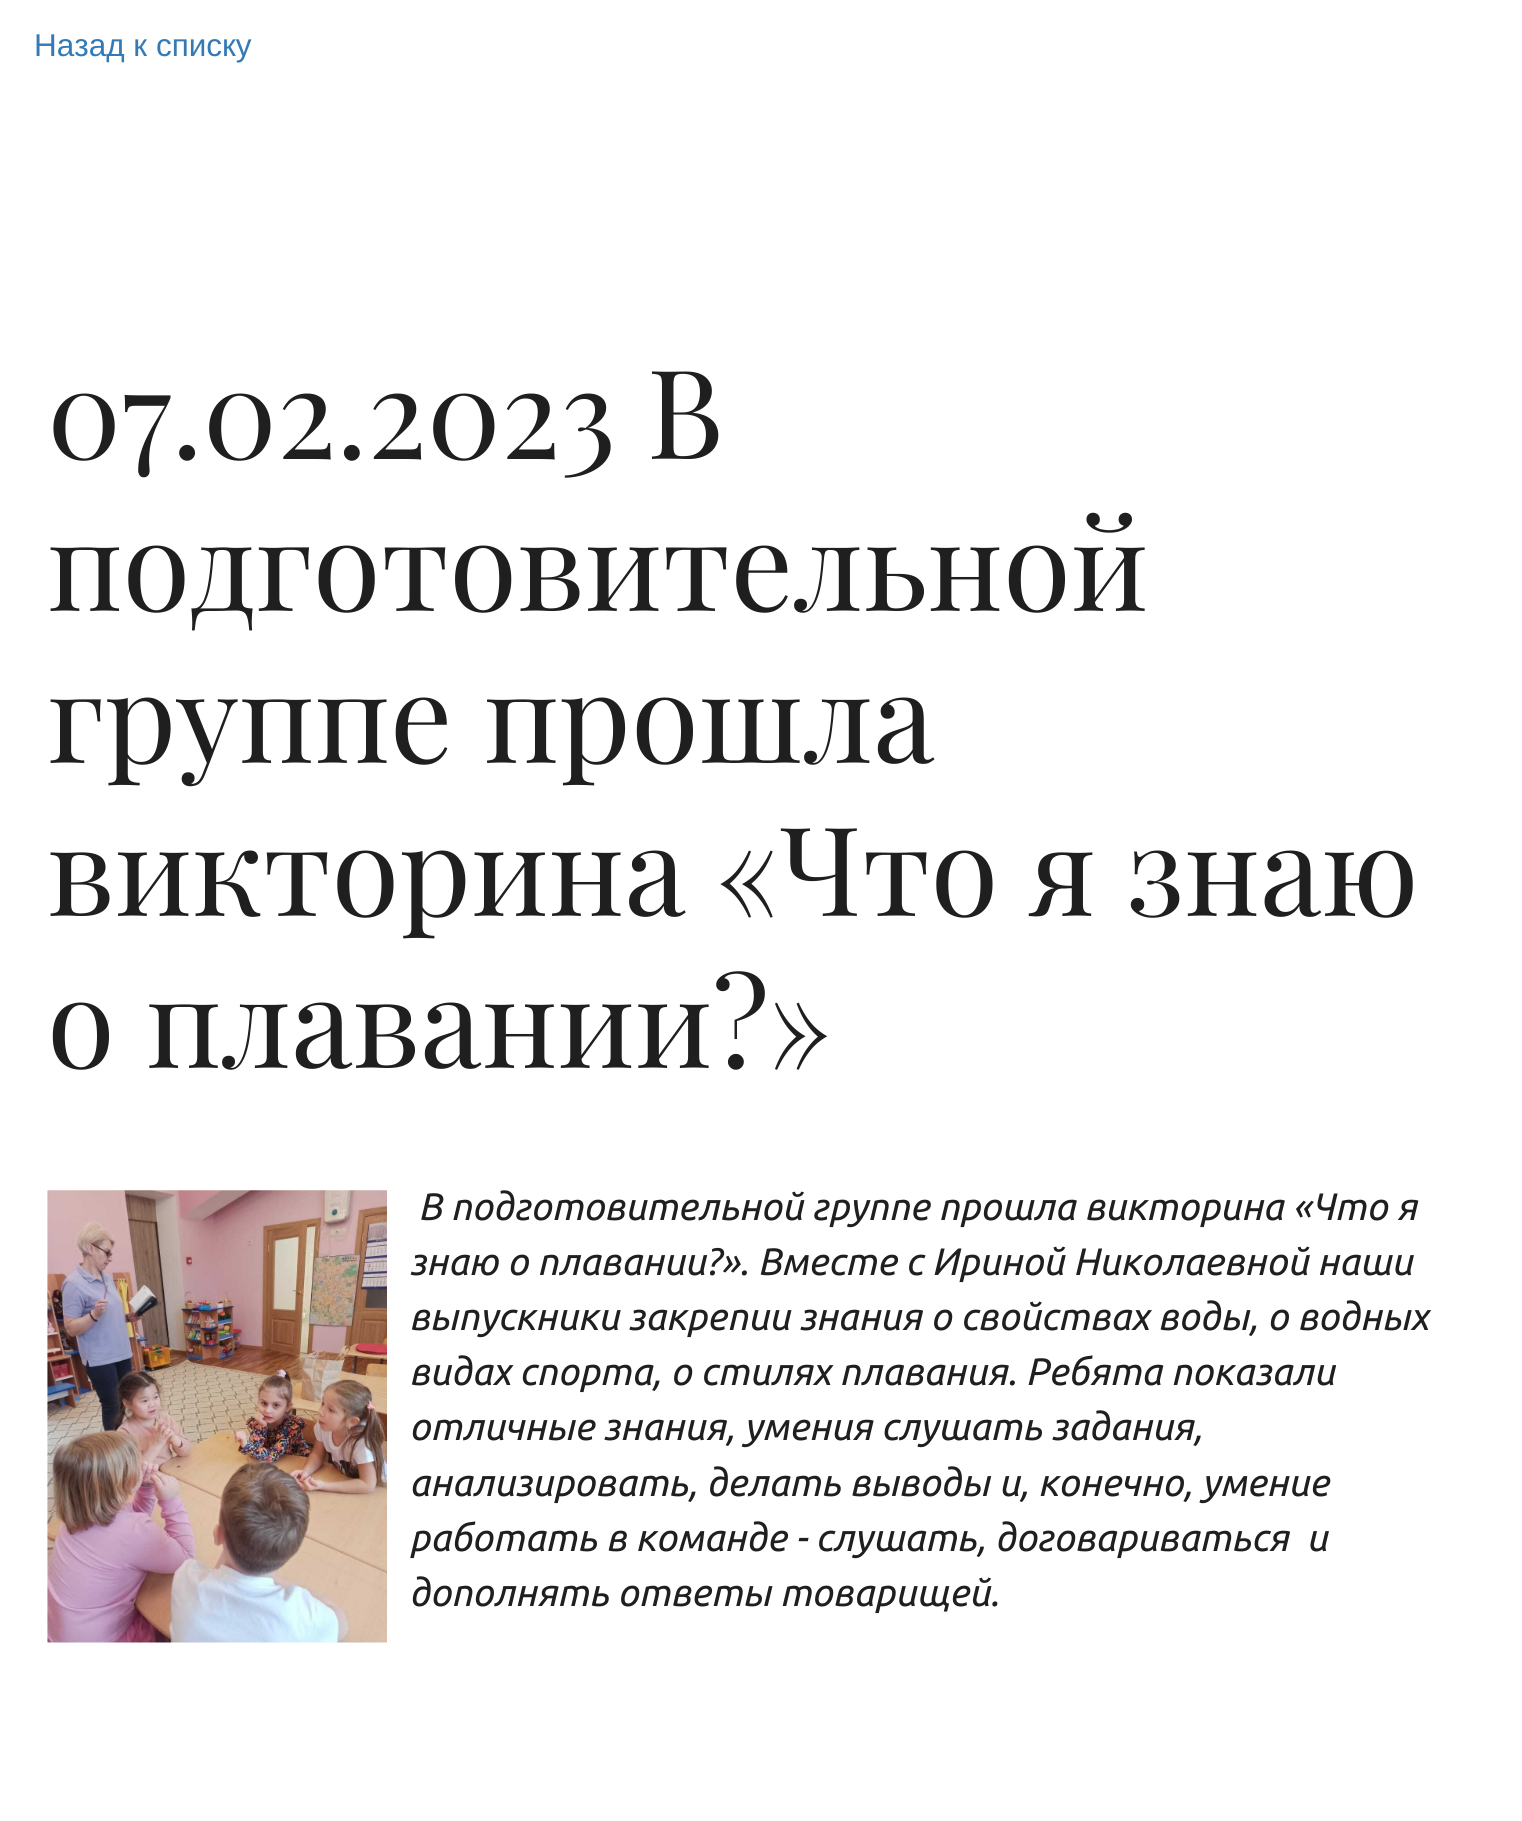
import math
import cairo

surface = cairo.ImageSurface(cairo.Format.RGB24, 1522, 1821)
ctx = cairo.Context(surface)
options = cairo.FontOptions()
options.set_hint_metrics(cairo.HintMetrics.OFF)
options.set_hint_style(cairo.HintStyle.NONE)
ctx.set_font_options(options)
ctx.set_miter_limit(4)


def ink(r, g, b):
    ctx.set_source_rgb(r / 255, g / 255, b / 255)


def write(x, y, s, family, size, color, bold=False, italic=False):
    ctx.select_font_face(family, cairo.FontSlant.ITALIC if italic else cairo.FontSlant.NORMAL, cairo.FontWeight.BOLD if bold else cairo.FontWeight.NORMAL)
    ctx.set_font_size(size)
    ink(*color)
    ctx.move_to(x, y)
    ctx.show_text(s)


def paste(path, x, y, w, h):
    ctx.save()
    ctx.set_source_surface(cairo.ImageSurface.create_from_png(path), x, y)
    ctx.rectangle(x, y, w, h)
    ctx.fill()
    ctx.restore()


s1 = dict(family="Liberation Sans", size=31.5, color=(51, 122, 183))
s2 = dict(family="Playfair Display", size=123.75, color=(31, 31, 31))
s3 = dict(family="Ubuntu", size=38.25, color=(31, 31, 31), italic=True)

ink(255, 255, 255)
ctx.paint()
write(34, 56, "Назад к списку", **s1)
write(47, 459, "07.02.2023 В", **s2)
write(47, 611, "подготовительной", **s2)
write(47, 763, "группе прошла", **s2)
write(47, 916, "викторина «Что я знаю", **s2)
write(47, 1068, "о плавании?»", **s2)
paste("pic1.png", 47, 1190, 340, 453)
write(418, 1220, "В подготовительной группе прошла викторина «Что я", **s3)
write(409, 1275, "знаю о плавании?». Вместе с Ириной Николаевной наши", **s3)
write(409, 1330, "выпускники закрепии знания о свойствах воды, о водных", **s3)
write(409, 1385, "видах спорта, о стилях плавания. Ребята показали", **s3)
write(409, 1440, "отличные знания, умения слушать задания,", **s3)
write(409, 1496, "анализировать, делать выводы и, конечно, умение", **s3)
write(409, 1551, "работать в команде - слушать, договариваться  и", **s3)
write(409, 1606, "дополнять ответы товарищей.", **s3)
surface.write_to_png("screenshot.png")
